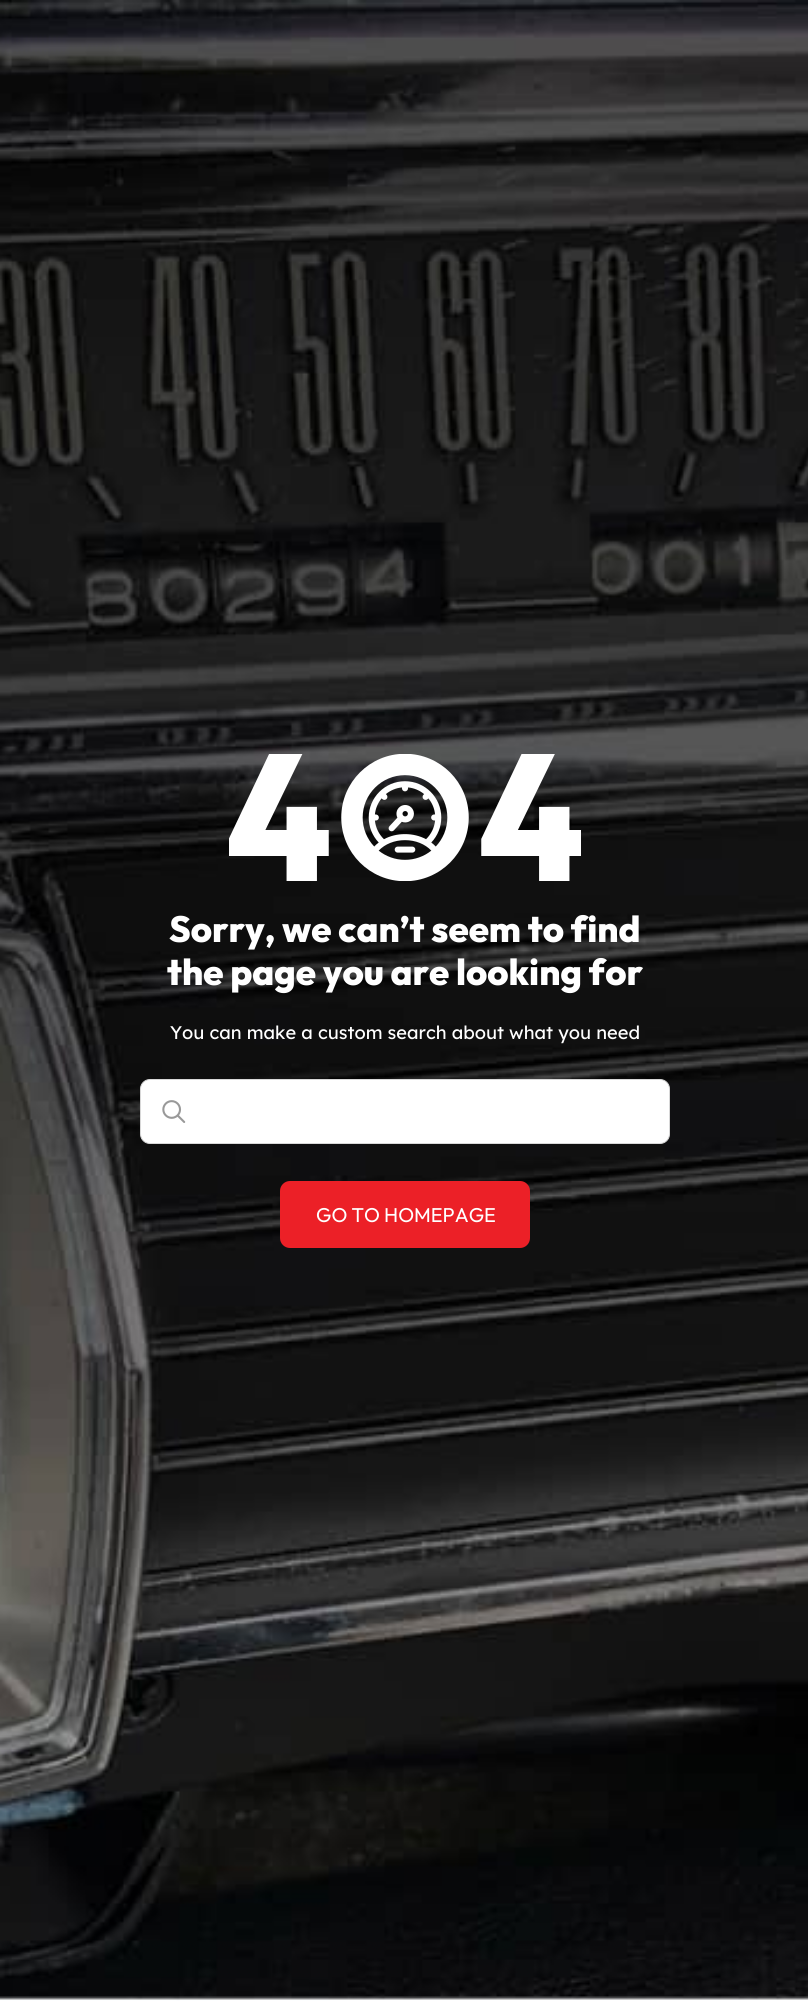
import math
import cairo

surface = cairo.ImageSurface(cairo.Format.RGB24, 808, 2001)
ctx = cairo.Context(surface)
options = cairo.FontOptions()
options.set_hint_metrics(cairo.HintMetrics.OFF)
options.set_hint_style(cairo.HintStyle.NONE)
ctx.set_font_options(options)
ctx.set_miter_limit(4)


def ink(r, g, b):
    ctx.set_source_rgb(r / 255, g / 255, b / 255)


def write(x, y, s, family, size, color, bold=False, italic=False):
    ctx.select_font_face(family, cairo.FontSlant.ITALIC if italic else cairo.FontSlant.NORMAL, cairo.FontWeight.BOLD if bold else cairo.FontWeight.NORMAL)
    ctx.set_font_size(size)
    ink(*color)
    ctx.move_to(x, y)
    ctx.show_text(s)


def round_path(x, y, w, h, r):
    ctx.new_sub_path()
    for i, (u, v) in enumerate([(x + w - r, y + h - r), (x + r, y + h - r), (x + r, y + r), (x + w - r, y + r)]):
        ctx.arc(u, v, r, i * math.pi / 2, (i + 1) * math.pi / 2)
    ctx.close_path()


def paste(path, x, y, w, h):
    ctx.save()
    ctx.set_source_surface(cairo.ImageSurface.create_from_png(path), x, y)
    ctx.rectangle(x, y, w, h)
    ctx.fill()
    ctx.restore()


s1 = dict(family="Outfit ExtraBold", size=36.5, color=(255, 255, 255))
s2 = dict(family="Lexend", size=18.25, color=(255, 255, 255))
s3 = dict(family="Outfit", size=20, color=(255, 255, 255))

ink(255, 255, 255)
ctx.paint()
paste("pic1.png", 0, 0, 808, 2001)
paste("pic2.png", 229, 754, 352, 127)
write(169, 942, "Sorry, we can’t seem to find", **s1)
write(167, 985, "the page you are looking for", **s1)
write(170, 1039, "You can make a custom search about what you need", **s2)
round_path(140.5, 1079.5, 529, 64, 9.5)
ctx.fill_preserve()
ink(216, 216, 216)
ctx.set_line_width(1)
ctx.stroke()
paste("pic3.png", 162, 1100, 24, 23)
ink(236, 32, 39)
round_path(280, 1181, 250, 67, 10)
ctx.fill()
write(316, 1222, "GO TO HOMEPAGE", **s3)
surface.write_to_png("screenshot.png")
